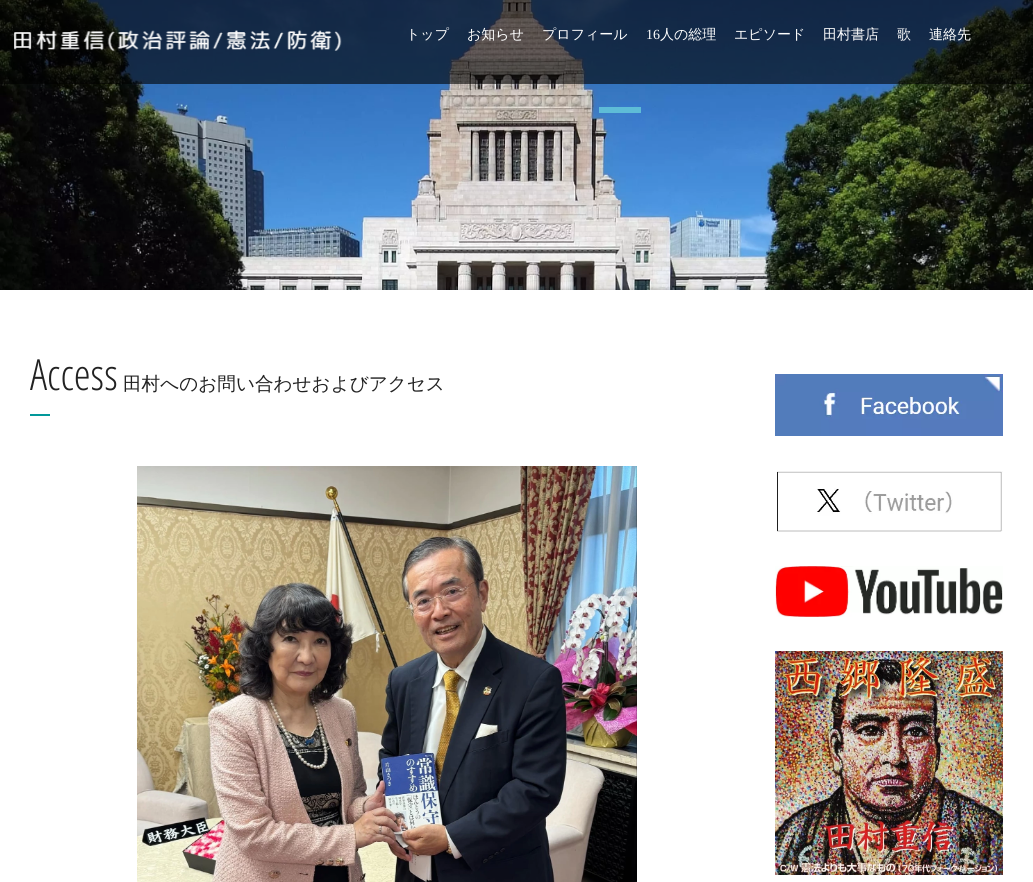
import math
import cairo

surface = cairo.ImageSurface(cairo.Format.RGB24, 1033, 882)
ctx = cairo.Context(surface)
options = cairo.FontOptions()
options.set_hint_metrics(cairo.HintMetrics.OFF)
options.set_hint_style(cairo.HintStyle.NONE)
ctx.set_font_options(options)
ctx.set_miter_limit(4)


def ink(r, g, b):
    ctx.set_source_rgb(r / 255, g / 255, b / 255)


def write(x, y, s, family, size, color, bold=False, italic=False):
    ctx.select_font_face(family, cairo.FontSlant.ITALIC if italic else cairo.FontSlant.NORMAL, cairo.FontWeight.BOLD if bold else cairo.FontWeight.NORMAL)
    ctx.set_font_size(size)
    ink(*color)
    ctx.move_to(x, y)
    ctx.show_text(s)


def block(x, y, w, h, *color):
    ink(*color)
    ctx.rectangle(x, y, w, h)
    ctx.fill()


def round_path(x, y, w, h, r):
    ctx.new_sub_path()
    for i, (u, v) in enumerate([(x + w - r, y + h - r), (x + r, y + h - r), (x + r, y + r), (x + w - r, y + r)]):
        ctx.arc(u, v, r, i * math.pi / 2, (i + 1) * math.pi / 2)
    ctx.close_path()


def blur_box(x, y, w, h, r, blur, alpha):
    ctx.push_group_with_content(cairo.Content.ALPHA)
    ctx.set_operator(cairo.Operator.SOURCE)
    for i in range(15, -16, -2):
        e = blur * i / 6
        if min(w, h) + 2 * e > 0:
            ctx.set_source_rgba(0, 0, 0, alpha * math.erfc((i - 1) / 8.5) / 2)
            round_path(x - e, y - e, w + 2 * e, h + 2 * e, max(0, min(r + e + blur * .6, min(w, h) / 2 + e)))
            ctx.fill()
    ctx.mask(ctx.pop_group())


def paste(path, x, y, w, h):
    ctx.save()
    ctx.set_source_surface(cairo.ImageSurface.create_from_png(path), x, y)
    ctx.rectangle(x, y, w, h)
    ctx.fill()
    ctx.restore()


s1 = dict(family="WenQuanYi Zen Hei Medium", size=14, color=(255, 255, 255))
s2 = dict(family="Liberation Serif", size=14, color=(255, 255, 255))
s3 = dict(family="Open Sans Condensed Light", size=43, color=(34, 34, 34))
s4 = dict(family="WenQuanYi Zen Hei Medium", size=18.6, color=(34, 34, 34))

ink(255, 255, 255)
ctx.paint()
paste("pic1.png", 0, 0, 1033, 290)
ctx.set_source_rgba(0, 0, 0, 0.6)
ctx.rectangle(0, 0, 1033, 84)
ctx.fill()
paste("pic2.png", 14, 30, 328, 21)
write(406, 39, "トップ", **s1)
write(467, 39, "お知らせ", **s1)
write(542, 39, "プロフィール", **s1)
write(646, 39, "16", **s2)
write(660, 39, "人の総理", **s1)
write(734, 39, "エピソード", **s1)
write(823, 39, "田村書店", **s1)
write(897, 39, "歌", **s1)
write(929, 39, "連絡先", **s1)
block(599, 107, 42, 6, 94, 188, 215)
ink(0, 0, 0)
blur_box(0, 290, 1033, 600, 0, 2.5, 0.3)
block(0, 290, 1033, 592, 255, 255, 255)
block(30, 414, 20, 2, 2, 152, 154)
write(30, 390, "Access", **s3)
write(123, 390, "田村へのお問い合わせおよびアクセス", **s4)
paste("pic3.png", 137, 466, 500, 416)
paste("pic4.png", 775, 374, 228, 62)
paste("pic5.png", 777, 471, 226, 61)
paste("pic6.png", 775, 566, 228, 51)
paste("pic7.png", 775, 651, 228, 224)
surface.write_to_png("screenshot.png")
